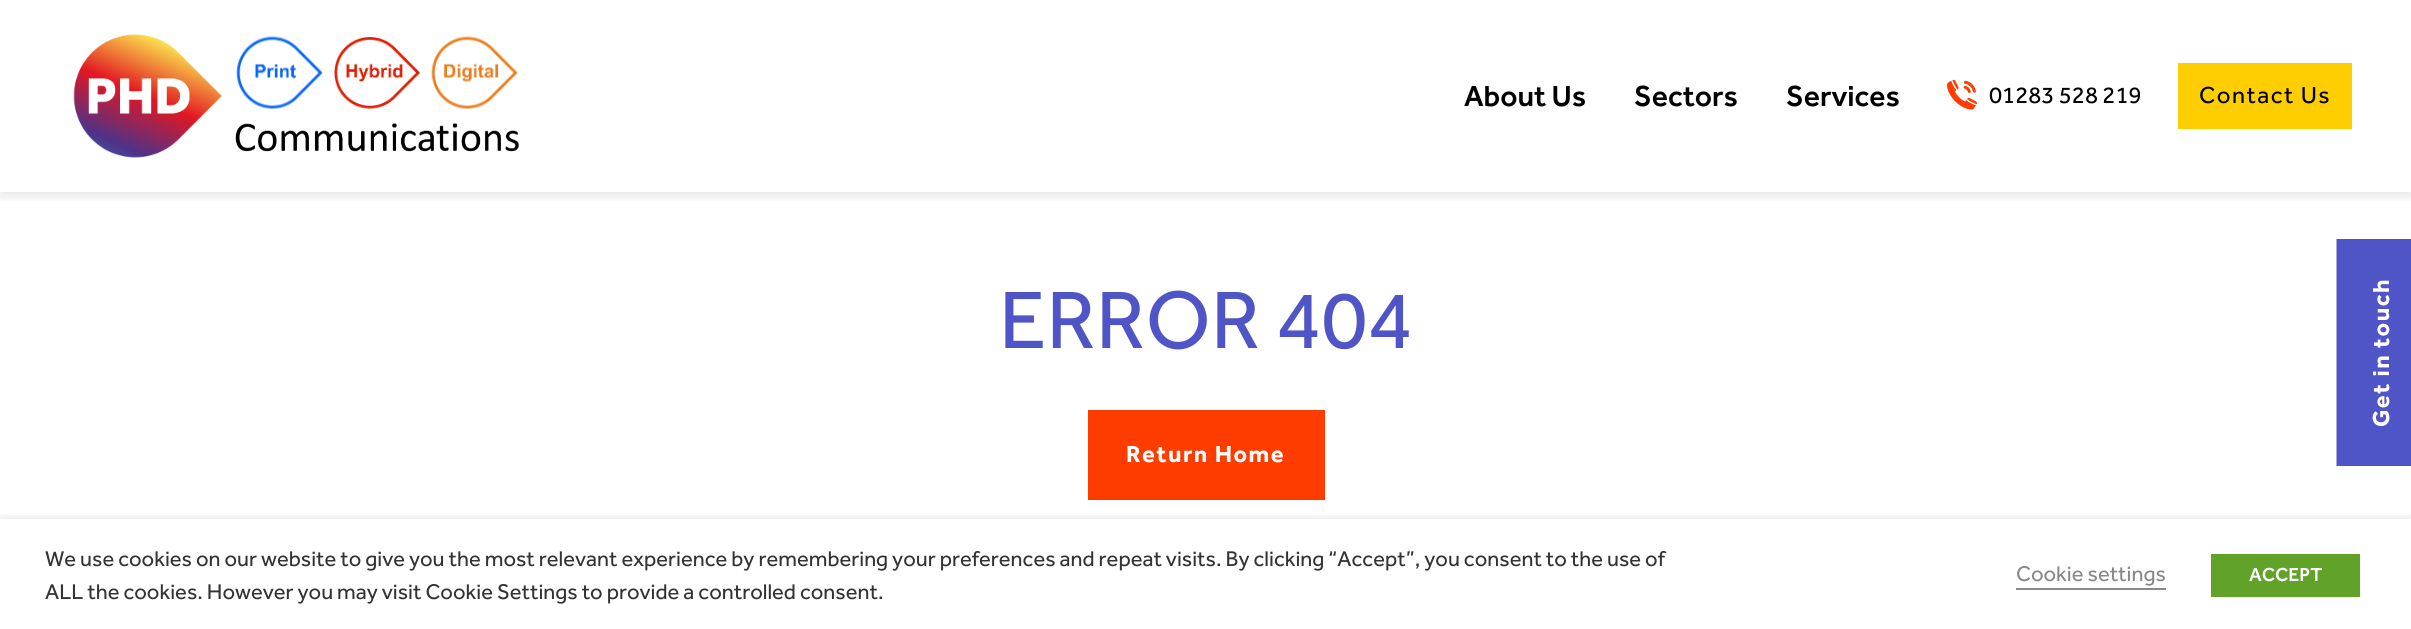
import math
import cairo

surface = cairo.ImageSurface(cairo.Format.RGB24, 2411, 629)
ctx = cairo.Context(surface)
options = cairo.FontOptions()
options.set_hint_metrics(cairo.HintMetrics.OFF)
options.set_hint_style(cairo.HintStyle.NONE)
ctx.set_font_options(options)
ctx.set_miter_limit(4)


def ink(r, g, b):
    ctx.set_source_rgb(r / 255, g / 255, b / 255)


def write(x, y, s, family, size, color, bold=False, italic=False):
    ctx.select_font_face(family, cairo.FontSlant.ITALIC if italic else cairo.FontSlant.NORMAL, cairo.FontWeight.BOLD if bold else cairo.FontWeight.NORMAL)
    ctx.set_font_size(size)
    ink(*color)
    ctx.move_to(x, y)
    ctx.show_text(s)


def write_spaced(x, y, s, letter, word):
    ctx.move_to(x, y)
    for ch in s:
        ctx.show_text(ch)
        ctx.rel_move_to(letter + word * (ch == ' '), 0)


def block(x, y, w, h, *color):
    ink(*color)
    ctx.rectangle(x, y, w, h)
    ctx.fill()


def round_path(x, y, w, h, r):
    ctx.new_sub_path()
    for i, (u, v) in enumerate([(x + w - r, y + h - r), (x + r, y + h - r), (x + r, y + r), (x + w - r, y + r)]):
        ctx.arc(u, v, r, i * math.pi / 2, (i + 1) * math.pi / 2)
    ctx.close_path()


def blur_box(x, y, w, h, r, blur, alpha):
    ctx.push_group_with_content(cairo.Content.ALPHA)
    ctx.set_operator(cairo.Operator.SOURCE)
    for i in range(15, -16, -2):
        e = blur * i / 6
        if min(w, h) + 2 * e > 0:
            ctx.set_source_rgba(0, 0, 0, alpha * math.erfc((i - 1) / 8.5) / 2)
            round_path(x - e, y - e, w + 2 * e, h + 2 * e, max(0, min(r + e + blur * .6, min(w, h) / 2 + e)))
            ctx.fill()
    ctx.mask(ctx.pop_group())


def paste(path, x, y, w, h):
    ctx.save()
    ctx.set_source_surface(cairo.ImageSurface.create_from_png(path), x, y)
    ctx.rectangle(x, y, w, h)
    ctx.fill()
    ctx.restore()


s1 = dict(family="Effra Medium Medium", size=30, color=(0, 0, 0))
s2 = dict(family="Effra", size=24, color=(0, 0, 0))
s3 = dict(family="Effra", size=84, color=(79, 84, 198))
s4 = dict(family="Effra", size=22, color=(51, 51, 51))
s5 = dict(family="Effra", size=22, color=(137, 136, 136))
s6 = dict(family="Effra Medium Medium", size=19.5, color=(255, 255, 255))

ink(255, 255, 255)
ctx.paint()
ctx.save()
ctx.rectangle(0, 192, 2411, 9)
ctx.clip()
ink(25, 25, 25)
blur_box(0, 5, 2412, 192, 0, 5, 0.1)
ctx.restore()
paste("pic1.png", 73, 34, 149, 124)
paste("pic2.png", 236, 36, 87, 73)
paste("pic3.png", 334, 37, 86, 72)
paste("pic4.png", 431, 36, 87, 73)
paste("pic5.png", 235, 123, 284, 29)
write(1464, 106, "About Us", **s1)
write(1634, 106, "Sectors", **s1)
write(1786, 106, "Services", **s1)
paste("pic6.png", 1947, 80, 30, 30)
write(1989, 103, "01283 528 219", **s2)
block(2178, 63, 174, 66, 255, 206, 0)
ink(0, 0, 0)
write_spaced(2199, 103, "Contact Us", 1.5, 0)
write(999, 348, "ERROR 404", **s3)
block(1088, 410, 237, 90, 255, 60, 0)
ctx.select_font_face("Effra", cairo.FontSlant.NORMAL, cairo.FontWeight.BOLD)
ctx.set_font_size(24)
ink(255, 255, 255)
write_spaced(1126, 462, "Return Home", 1.5, 0)
block(2339, 242, 72, 221, 79, 84, 198)
ctx.new_path()
ctx.move_to(2338, 464.5)
ctx.line_to(2338, 240.5)
ctx.line_to(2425, 240.5)
ctx.line_to(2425, 464.5)
ctx.close_path()
ctx.set_line_width(3)
ctx.stroke()
ink(255, 255, 255)
ctx.save()
ctx.translate(2389, 427)
ctx.rotate(-90 * math.pi / 180)
write_spaced(0, 0, "Get in touch", 1.5, 0)
ctx.restore()
ctx.save()
ctx.rectangle(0, 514, 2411, 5)
ctx.clip()
ink(0, 0, 0)
blur_box(0, 527, 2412, 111, 0, 7.5, 0.5)
ctx.restore()
write(45, 566, "We use cookies on our website to give you the most relevant experience by remembering your preferences and repeat visits. By clicking “Accept”, you consent to the use of", **s4)
write(45, 599, "ALL the cookies. However you may visit Cookie Settings to provide a controlled consent.", **s4)
write(2016, 581, "Cookie settings", **s5)
block(2016, 588, 150, 2, 137, 136, 136)
block(2211, 554, 149, 43, 97, 162, 41)
write(2249, 581, "ACCEPT", **s6)
surface.write_to_png("screenshot.png")
